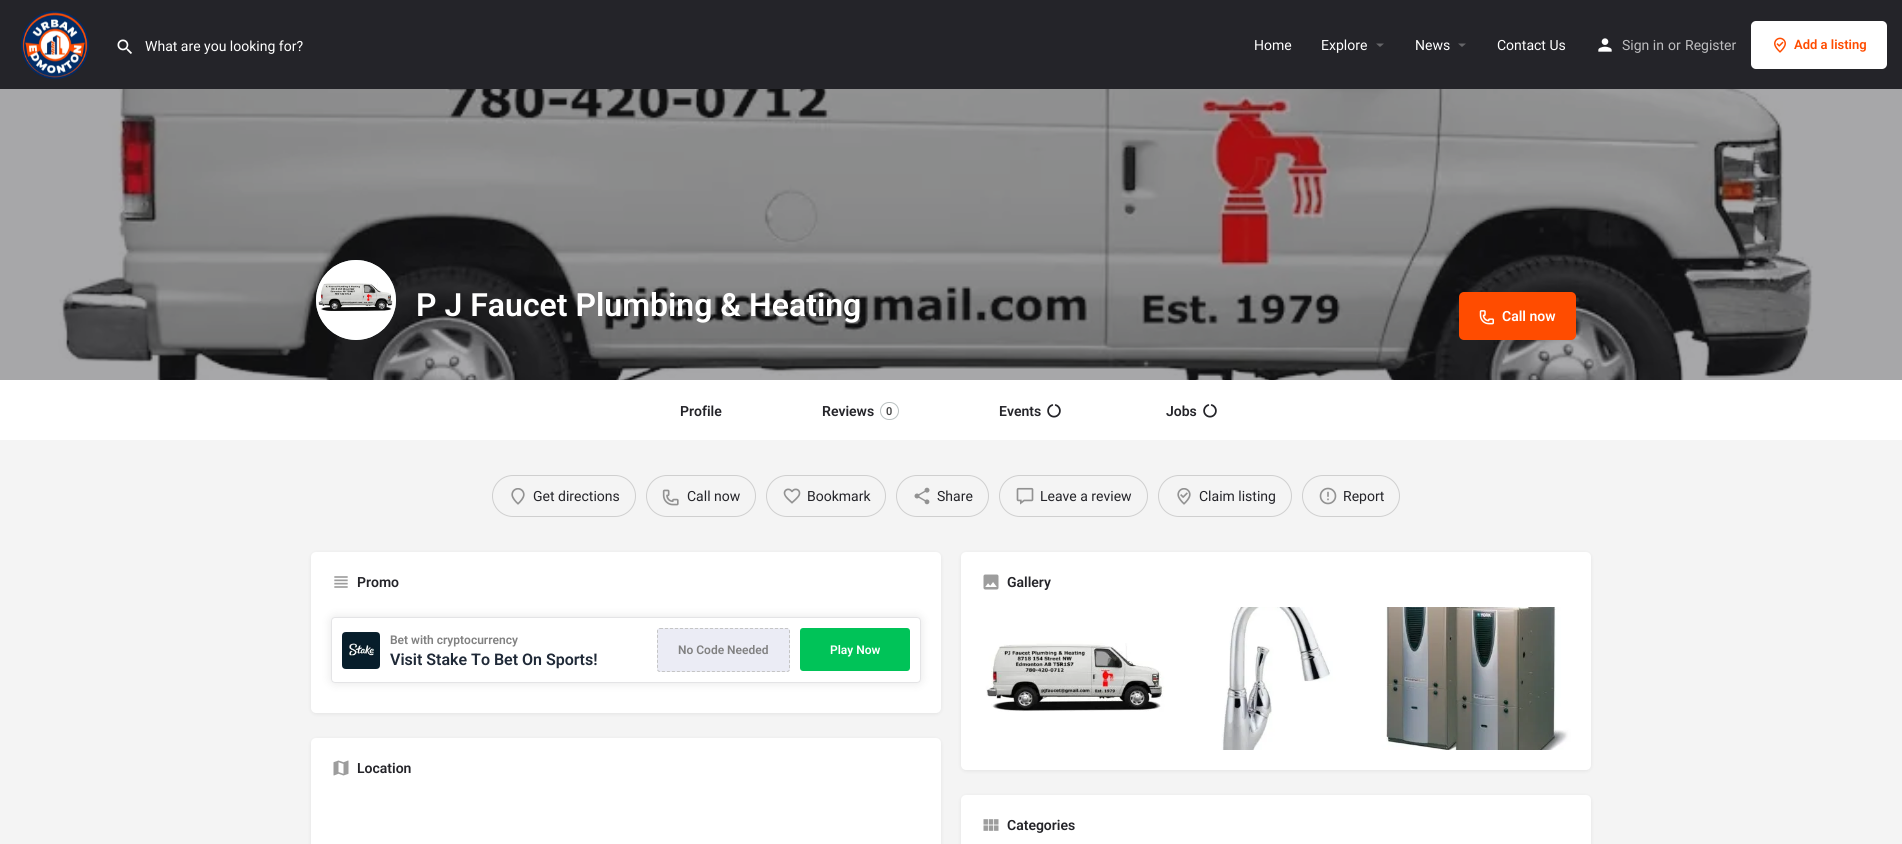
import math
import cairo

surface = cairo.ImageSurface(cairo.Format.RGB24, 1902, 844)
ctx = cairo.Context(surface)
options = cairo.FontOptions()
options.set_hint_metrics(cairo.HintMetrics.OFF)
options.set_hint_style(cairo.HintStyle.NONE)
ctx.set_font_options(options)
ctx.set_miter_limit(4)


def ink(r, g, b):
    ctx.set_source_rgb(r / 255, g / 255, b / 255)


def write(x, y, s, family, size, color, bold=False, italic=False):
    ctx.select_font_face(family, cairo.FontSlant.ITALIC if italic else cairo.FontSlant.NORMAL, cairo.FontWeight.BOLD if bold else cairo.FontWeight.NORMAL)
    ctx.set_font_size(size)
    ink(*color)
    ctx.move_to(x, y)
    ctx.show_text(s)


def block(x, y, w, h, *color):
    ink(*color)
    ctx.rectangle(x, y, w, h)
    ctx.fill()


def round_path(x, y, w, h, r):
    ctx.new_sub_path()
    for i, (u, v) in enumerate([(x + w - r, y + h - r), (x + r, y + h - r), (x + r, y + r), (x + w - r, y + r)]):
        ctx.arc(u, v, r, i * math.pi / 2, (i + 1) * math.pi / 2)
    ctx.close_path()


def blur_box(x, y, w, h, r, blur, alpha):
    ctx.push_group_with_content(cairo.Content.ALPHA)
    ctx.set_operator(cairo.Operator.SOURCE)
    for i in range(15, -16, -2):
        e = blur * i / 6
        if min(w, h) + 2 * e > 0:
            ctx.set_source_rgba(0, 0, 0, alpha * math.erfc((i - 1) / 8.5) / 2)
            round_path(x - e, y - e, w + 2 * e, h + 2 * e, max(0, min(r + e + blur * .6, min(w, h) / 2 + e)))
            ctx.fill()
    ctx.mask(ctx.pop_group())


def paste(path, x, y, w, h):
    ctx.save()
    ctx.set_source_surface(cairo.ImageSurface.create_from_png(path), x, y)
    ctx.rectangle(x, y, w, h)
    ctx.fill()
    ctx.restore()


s1 = dict(family="Roboto", size=14, color=(255, 255, 255))
s2 = dict(family="Roboto", size=14, color=(189, 189, 191))
s3 = dict(family="Roboto SemiBold", size=13, color=(255, 76, 0))
s4 = dict(family="Roboto SemiBold", size=32, color=(255, 255, 255))
s5 = dict(family="Roboto SemiBold", size=14, color=(255, 255, 255))
s6 = dict(family="Roboto SemiBold", size=14, color=(36, 36, 41))
s7 = dict(family="Roboto SemiBold", size=11, color=(72, 72, 72))
s8 = dict(family="Roboto", size=14, color=(36, 36, 41))
s9 = dict(family="Roboto SemiBold", size=12, color=(129, 129, 129))
s10 = dict(family="Roboto SemiBold", size=16, color=(31, 41, 55))
s11 = dict(family="Roboto SemiBold", size=12, color=(255, 255, 255))

ink(244, 244, 244)
ctx.paint()
block(0, 0, 1902, 89, 36, 36, 41)
paste("pic1.png", 21, 10, 68, 70)
paste("pic2.png", 117, 39, 15, 15)
write(145, 51, "What are you looking for?", **s1)
write(1254, 50, "Home", **s1)
write(1321, 50, "Explore", **s1)
ink(102, 102, 105)
ctx.new_path()
ctx.move_to(1376, 43.5)
ctx.line_to(1384, 43.5)
ctx.line_to(1380, 47)
ctx.close_path()
ctx.fill()
write(1415, 50, "News", **s1)
ink(102, 102, 105)
ctx.new_path()
ctx.move_to(1458, 43.5)
ctx.line_to(1466, 43.5)
ctx.line_to(1462, 47)
ctx.close_path()
ctx.fill()
write(1497, 50, "Contact Us", **s1)
paste("pic3.png", 1598, 38, 14, 14)
write(1622, 50, "Sign in", **s2)
write(1668, 50, "or", **s2)
write(1685, 50, "Register", **s2)
ink(255, 255, 255)
round_path(1751, 21, 136, 48, 5)
ctx.fill()
paste("pic4.png", 1774, 37, 12, 16)
write(1794, 49, "Add a listing", **s3)
paste("pic5.png", 0, 89, 1902, 291)
ink(221, 229, 230)
ctx.arc(356, 300, 40, 0, 2 * math.pi)
ctx.fill()
paste("pic6.png", 316, 260, 80, 80)
write(416, 316, "P J Faucet Plumbing & Heating", **s4)
ink(255, 76, 0)
round_path(1459, 292, 117, 48, 5)
ctx.fill()
paste("pic7.png", 1479, 310, 15, 15)
write(1502, 321, "Call now", **s5)
block(0, 380, 1902, 60, 255, 255, 255)
write(680, 416, "Profile", **s6)
write(822, 416, "Reviews", **s6)
round_path(880.5, 402.5, 18, 17, 8.5)
ink(186, 193, 193)
ctx.set_line_width(1)
ctx.stroke()
write(886, 415, "0", **s7)
write(999, 416, "Events", **s6)
paste("pic8.png", 1047, 404, 14, 14)
write(1166, 416, "Jobs", **s6)
paste("pic8.png", 1203, 404, 14, 14)
round_path(492.5, 475.5, 143, 41, 20.5)
ink(207, 207, 207)
ctx.stroke()
paste("pic9.png", 511, 488, 14, 17)
write(533, 501, "Get directions", **s8)
round_path(646.5, 475.5, 109, 41, 20.5)
ink(207, 207, 207)
ctx.stroke()
paste("pic10.png", 662, 489, 17, 17)
write(687, 501, "Call now", **s8)
round_path(766.5, 475.5, 119, 41, 20.5)
ink(207, 207, 207)
ctx.stroke()
paste("pic11.png", 783, 488, 18, 16)
write(807, 501, "Bookmark", **s8)
round_path(896.5, 475.5, 92, 41, 20.5)
ink(207, 207, 207)
ctx.stroke()
paste("pic12.png", 914, 487, 16, 18)
write(937, 501, "Share", **s8)
round_path(999.5, 475.5, 148, 41, 20.5)
ink(207, 207, 207)
ctx.stroke()
paste("pic13.png", 1016, 487, 18, 18)
write(1040, 501, "Leave a review", **s8)
round_path(1158.5, 475.5, 133, 41, 20.5)
ink(207, 207, 207)
ctx.stroke()
paste("pic14.png", 1177, 488, 14, 17)
write(1199, 501, "Claim listing", **s8)
round_path(1302.5, 475.5, 97, 41, 20.5)
ink(207, 207, 207)
ctx.stroke()
paste("pic15.png", 1319, 487, 18, 18)
write(1343, 501, "Report", **s8)
ink(0, 0, 0)
blur_box(311, 553, 630, 161, 5, 2, 0.07)
ink(255, 255, 255)
round_path(311, 552, 630, 161, 5)
ctx.fill()
paste("pic16.png", 334, 576, 14, 12)
write(357, 587, "Promo", **s6)
ctx.save()
ctx.set_fill_rule(cairo.FillRule.EVEN_ODD)
ctx.new_path()
ctx.move_to(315, 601)
ctx.line_to(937, 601)
ctx.line_to(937, 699)
ctx.line_to(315, 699)
ctx.close_path()
ctx.move_to(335, 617)
ctx.line_to(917, 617)
ctx.curve_to(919, 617, 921, 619, 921, 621)
ctx.line_to(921, 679)
ctx.curve_to(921, 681, 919, 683, 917, 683)
ctx.line_to(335, 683)
ctx.curve_to(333, 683, 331, 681, 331, 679)
ctx.line_to(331, 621)
ctx.curve_to(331, 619, 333, 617, 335, 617)
ctx.close_path()
ctx.clip()
ink(0, 0, 0)
blur_box(331, 617, 590, 66, 4, 5, 0.1)
ctx.restore()
round_path(331.5, 617.5, 589, 65, 3.5)
ctx.set_source_rgba(0.643, 0.643, 0.667, 0.3)
ctx.stroke()
paste("pic17.png", 342, 632, 38, 37)
write(390, 644, "Bet with cryptocurrency", **s9)
write(390, 665, "Visit Stake To Bet On Sports!", **s10)
ink(235, 236, 245)
round_path(657, 628, 133, 44, 3)
ctx.fill()
ctx.new_path()
ctx.move_to(660, 628.5)
ctx.line_to(787, 628.5)
ctx.curve_to(788.5, 628.5, 789.5, 629.5, 789.5, 631)
ctx.line_to(789.5, 669)
ctx.curve_to(789.5, 670.5, 788.5, 671.5, 787, 671.5)
ctx.line_to(660, 671.5)
ctx.curve_to(658.5, 671.5, 657.5, 670.5, 657.5, 669)
ctx.line_to(657.5, 631)
ctx.curve_to(657.5, 629.5, 658.5, 628.5, 660, 628.5)
ctx.close_path()
ink(197, 197, 197)
ctx.set_dash([3, 2])
ctx.stroke()
write(678, 654, "No Code Needed", **s9)
ink(0, 195, 88)
round_path(800, 628, 110, 43, 3)
ctx.fill()
write(830, 654, "Play Now", **s11)
ink(0, 0, 0)
blur_box(311, 739, 630, 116, 5, 2, 0.07)
ink(255, 255, 255)
round_path(311, 738, 630, 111, 5)
ctx.fill()
paste("pic18.png", 333, 760, 16, 16)
write(357, 773, "Location", **s6)
ink(0, 0, 0)
blur_box(961, 553, 630, 218, 5, 2, 0.07)
ink(255, 255, 255)
round_path(961, 552, 630, 218, 5)
ctx.fill()
paste("pic19.png", 983, 574, 16, 16)
write(1007, 587, "Gallery", **s6)
paste("pic20.png", 981, 607, 190, 143)
paste("pic21.png", 1181, 607, 190, 143)
paste("pic22.png", 1381, 607, 190, 143)
ink(0, 0, 0)
blur_box(961, 796, 630, 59, 5, 2, 0.07)
ink(255, 255, 255)
round_path(961, 795, 630, 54, 5)
ctx.fill()
paste("pic23.png", 983, 819, 16, 12)
write(1007, 830, "Categories", **s6)
surface.write_to_png("screenshot.png")
